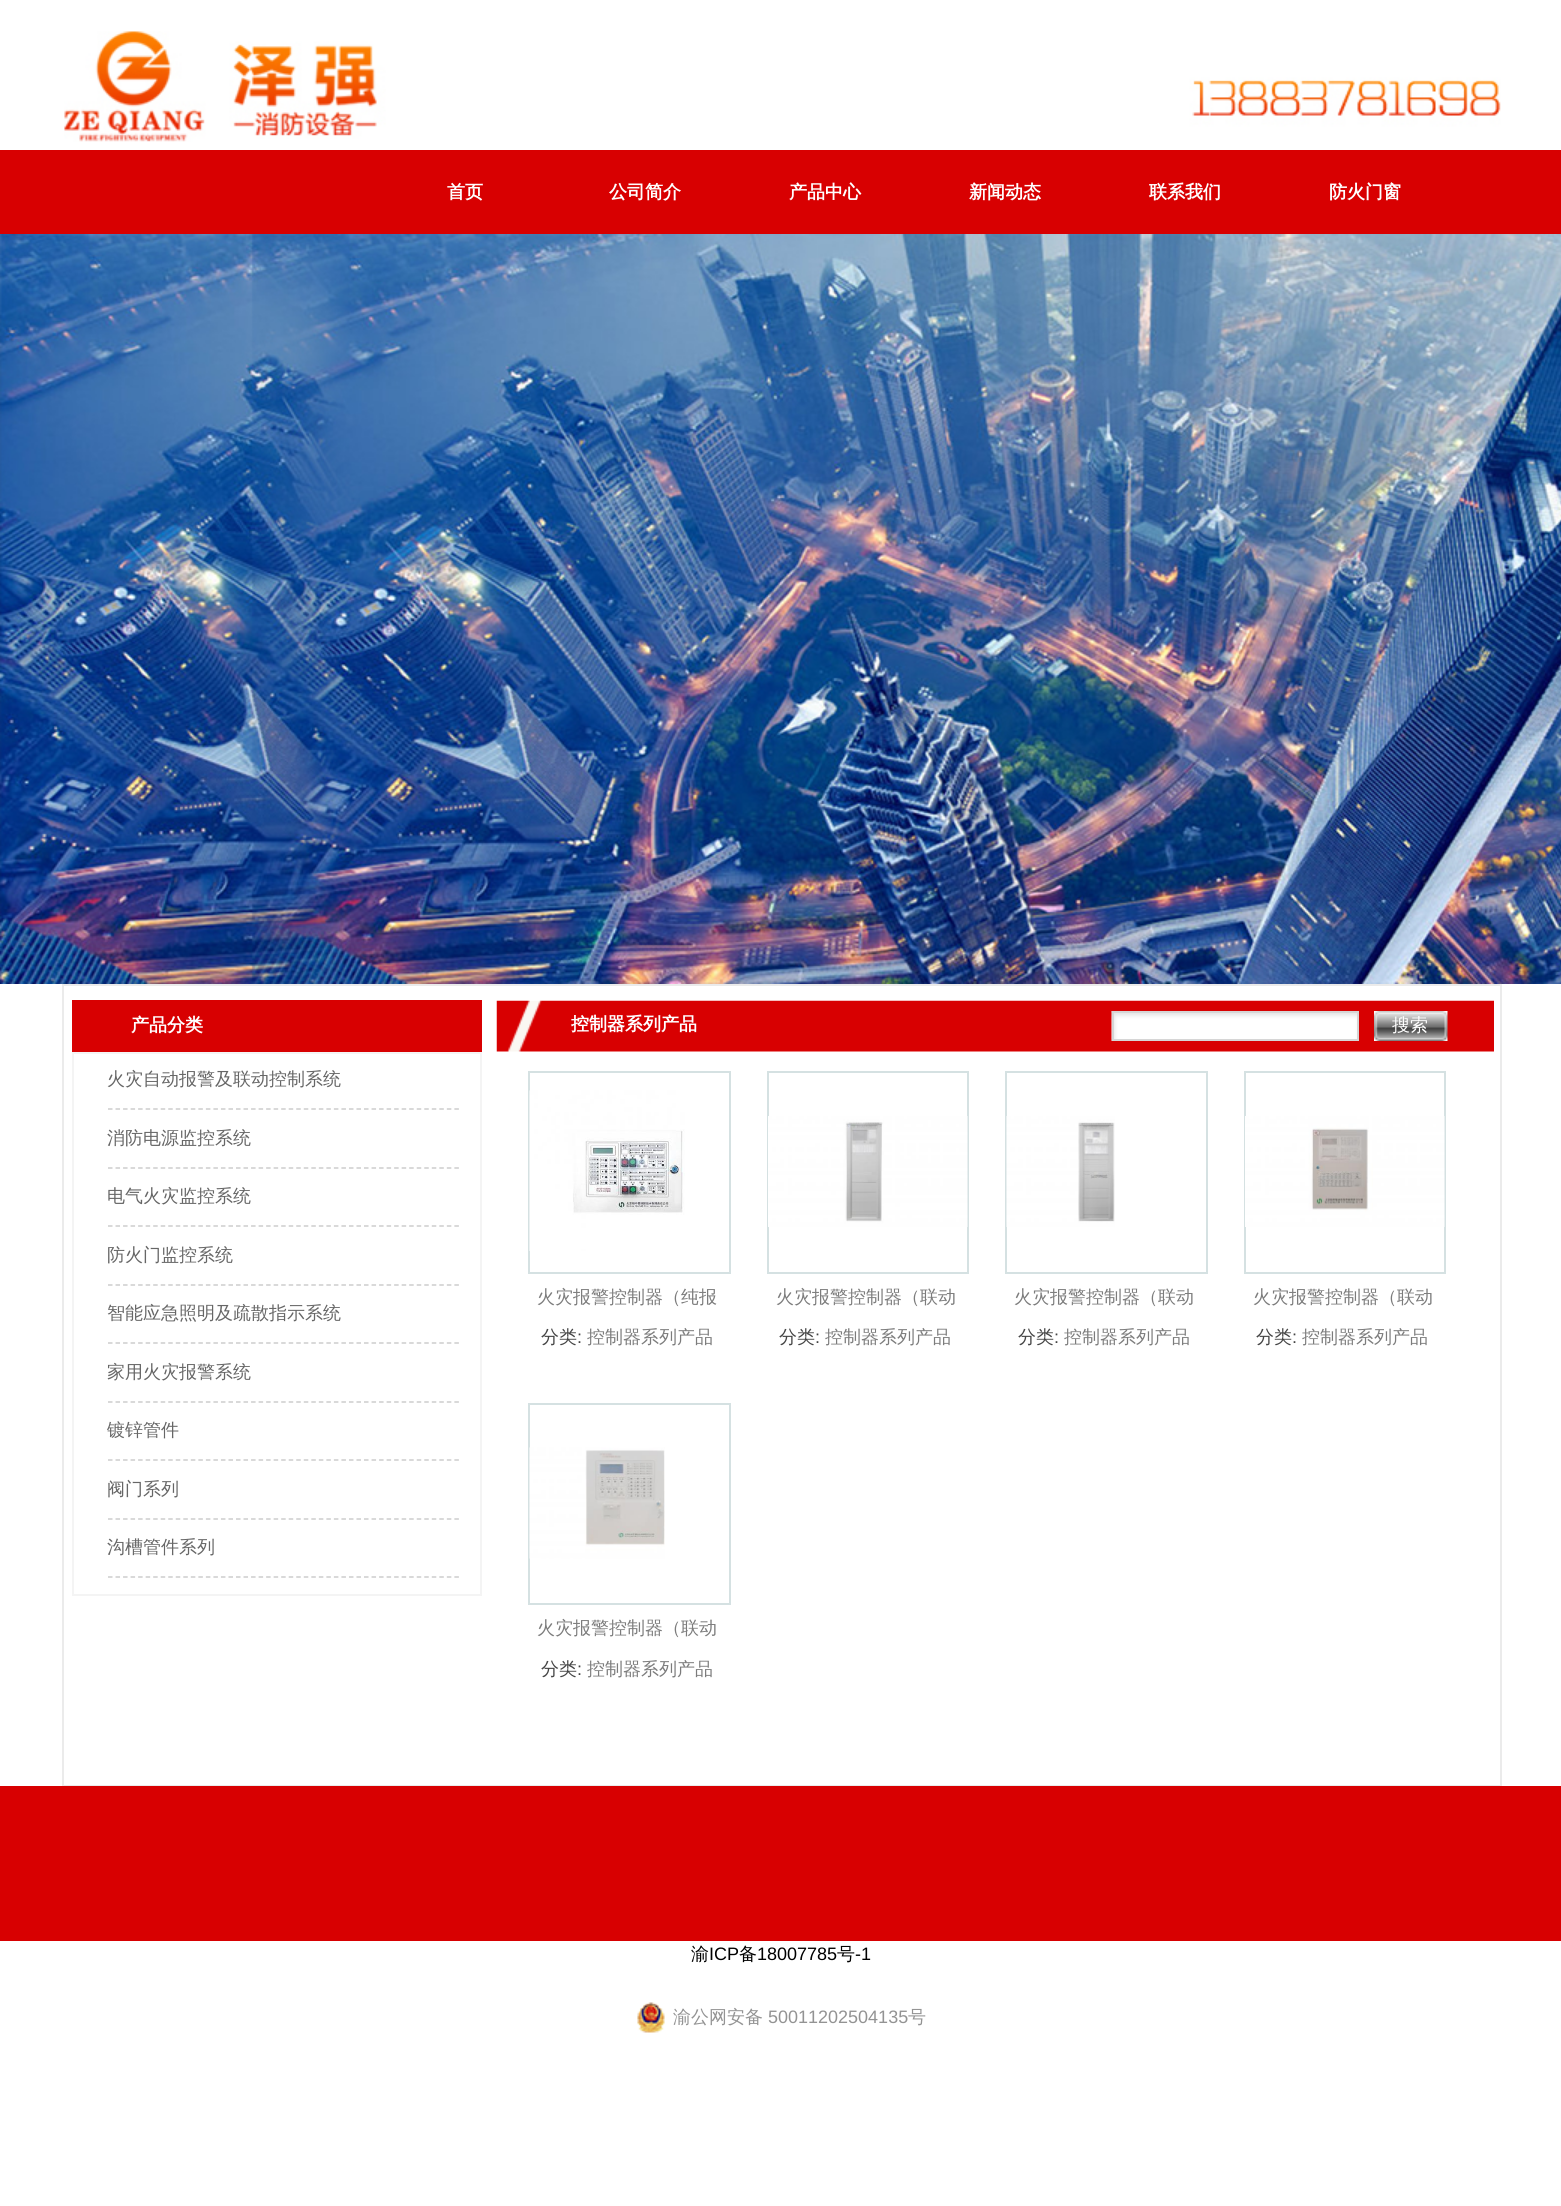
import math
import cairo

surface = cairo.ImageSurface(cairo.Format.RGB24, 1561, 2206)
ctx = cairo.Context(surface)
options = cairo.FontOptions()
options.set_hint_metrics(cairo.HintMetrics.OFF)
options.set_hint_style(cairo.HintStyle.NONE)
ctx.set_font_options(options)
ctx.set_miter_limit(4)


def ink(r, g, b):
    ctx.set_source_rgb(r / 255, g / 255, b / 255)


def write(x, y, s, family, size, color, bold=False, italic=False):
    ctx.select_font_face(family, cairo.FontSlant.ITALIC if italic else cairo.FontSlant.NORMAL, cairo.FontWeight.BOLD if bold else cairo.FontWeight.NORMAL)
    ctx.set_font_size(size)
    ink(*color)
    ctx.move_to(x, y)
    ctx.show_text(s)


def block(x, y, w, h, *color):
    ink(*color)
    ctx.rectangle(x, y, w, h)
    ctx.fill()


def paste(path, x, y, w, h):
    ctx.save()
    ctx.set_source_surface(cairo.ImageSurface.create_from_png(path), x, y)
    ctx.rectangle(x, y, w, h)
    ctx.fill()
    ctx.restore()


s1 = dict(family="WenQuanYi Zen Hei", size=18, color=(255, 255, 255), bold=True)
s2 = dict(family="WenQuanYi Zen Hei Medium", size=18, color=(102, 102, 102))
s3 = dict(family="WenQuanYi Zen Hei Medium", size=18, color=(255, 255, 255))
s4 = dict(family="WenQuanYi Zen Hei Medium", size=18, color=(124, 124, 124))
s5 = dict(family="WenQuanYi Zen Hei Medium", size=18, color=(68, 68, 68))
s6 = dict(family="Liberation Sans", size=18, color=(68, 68, 68))
s7 = dict(family="WenQuanYi Zen Hei Medium", size=18, color=(0, 0, 0))
s8 = dict(family="Liberation Sans", size=18, color=(0, 0, 0))
s9 = dict(family="WenQuanYi Zen Hei Medium", size=18, color=(147, 147, 147))
s10 = dict(family="Liberation Sans", size=18, color=(147, 147, 147))

ink(255, 255, 255)
ctx.paint()
block(0, 150, 1561, 84, 216, 0, 1)
paste("pic1.png", 64, 31, 1437, 111)
write(447, 198, "首页", **s1)
write(609, 198, "公司简介", **s1)
write(789, 198, "产品中心", **s1)
write(969, 198, "新闻动态", **s1)
write(1149, 198, "联系我们", **s1)
write(1329, 198, "防火门窗", **s1)
paste("pic2.png", 0, 234, 1561, 750)
ctx.rectangle(63, 985, 1438, 801)
ink(235, 235, 235)
ctx.stroke()
block(72, 1000, 410, 52, 216, 0, 1)
write(131, 1031, "产品分类", **s1)
ctx.rectangle(73, 1053, 408, 542)
ink(244, 244, 244)
ctx.stroke()
ctx.new_path()
ctx.move_to(108, 1109)
ctx.line_to(459, 1109)
ink(204, 204, 204)
ctx.set_line_width(1.5)
ctx.set_dash([4.5, 3.03])
ctx.stroke()
write(107, 1085, "火灾自动报警及联动控制系统", **s2)
ctx.new_path()
ctx.move_to(108, 1168)
ctx.line_to(459, 1168)
ink(204, 204, 204)
ctx.stroke()
write(107, 1144, "消防电源监控系统", **s2)
ctx.new_path()
ctx.move_to(108, 1226)
ctx.line_to(459, 1226)
ink(204, 204, 204)
ctx.stroke()
write(107, 1202, "电气火灾监控系统", **s2)
ctx.new_path()
ctx.move_to(108, 1285)
ctx.line_to(459, 1285)
ink(204, 204, 204)
ctx.stroke()
write(107, 1261, "防火门监控系统", **s2)
ctx.new_path()
ctx.move_to(108, 1343)
ctx.line_to(459, 1343)
ink(204, 204, 204)
ctx.stroke()
write(107, 1319, "智能应急照明及疏散指示系统", **s2)
ctx.new_path()
ctx.move_to(108, 1402)
ctx.line_to(459, 1402)
ink(204, 204, 204)
ctx.stroke()
write(107, 1378, "家用火灾报警系统", **s2)
ctx.new_path()
ctx.move_to(108, 1460)
ctx.line_to(459, 1460)
ink(204, 204, 204)
ctx.stroke()
write(107, 1436, "镀锌管件", **s2)
ctx.new_path()
ctx.move_to(108, 1519)
ctx.line_to(459, 1519)
ink(204, 204, 204)
ctx.stroke()
write(107, 1495, "阀门系列", **s2)
ctx.new_path()
ctx.move_to(108, 1577)
ctx.line_to(459, 1577)
ink(204, 204, 204)
ctx.stroke()
write(107, 1553, "沟槽管件系列", **s2)
paste("pic3.png", 496, 1000, 998, 52)
write(571, 1030, "控制器系列产品", **s1)
paste("pic4.png", 1111, 1011, 246, 30)
ctx.rectangle(1113, 1012, 245, 28)
ink(214, 214, 214)
ctx.set_line_width(2)
ctx.set_dash([])
ctx.stroke()
paste("pic5.png", 1374, 1011, 74, 30)
write(1392, 1031, "搜索", **s3)
ctx.rectangle(529, 1072, 201, 201)
ink(213, 225, 226)
ctx.stroke()
paste("pic6.png", 529, 1090, 156, 161)
write(537, 1303, "火灾报警控制器（纯报", **s4)
write(541, 1343, "分类", **s5)
write(577, 1343, ":", **s6)
write(587, 1343, "控制器系列产品", **s4)
ctx.rectangle(768, 1072, 200, 201)
ink(213, 225, 226)
ctx.stroke()
paste("pic7.png", 768, 1116, 200, 111)
write(776, 1303, "火灾报警控制器（联动", **s4)
write(779, 1343, "分类", **s5)
write(815, 1343, ":", **s6)
write(825, 1343, "控制器系列产品", **s4)
ctx.rectangle(1006, 1072, 201, 201)
ink(213, 225, 226)
ctx.stroke()
paste("pic8.png", 1006, 1116, 109, 111)
write(1014, 1303, "火灾报警控制器（联动", **s4)
write(1018, 1343, "分类", **s5)
write(1054, 1343, ":", **s6)
write(1064, 1343, "控制器系列产品", **s4)
ctx.rectangle(1245, 1072, 200, 201)
ink(213, 225, 226)
ctx.stroke()
paste("pic9.png", 1245, 1116, 200, 111)
write(1253, 1303, "火灾报警控制器（联动", **s4)
write(1256, 1343, "分类", **s5)
write(1292, 1343, ":", **s6)
write(1302, 1343, "控制器系列产品", **s4)
ctx.rectangle(529, 1404, 201, 200)
ink(213, 225, 226)
ctx.stroke()
paste("pic10.png", 529, 1447, 136, 112)
write(537, 1634, "火灾报警控制器（联动", **s4)
write(541, 1675, "分类", **s5)
write(577, 1675, ":", **s6)
write(587, 1675, "控制器系列产品", **s4)
block(0, 1786, 1561, 155, 216, 0, 1)
write(691, 1960, "渝", **s7)
write(709, 1960, "ICP", **s8)
write(739, 1960, "备", **s7)
write(757, 1960, "18007785", **s8)
write(837, 1960, "号", **s7)
write(855, 1960, "-1", **s8)
paste("pic11.png", 637, 2002, 28, 31)
write(673, 2023, "渝公网安备", **s9)
write(768, 2023, "50011202504135", **s10)
write(908, 2023, "号", **s9)
surface.write_to_png("screenshot.png")
